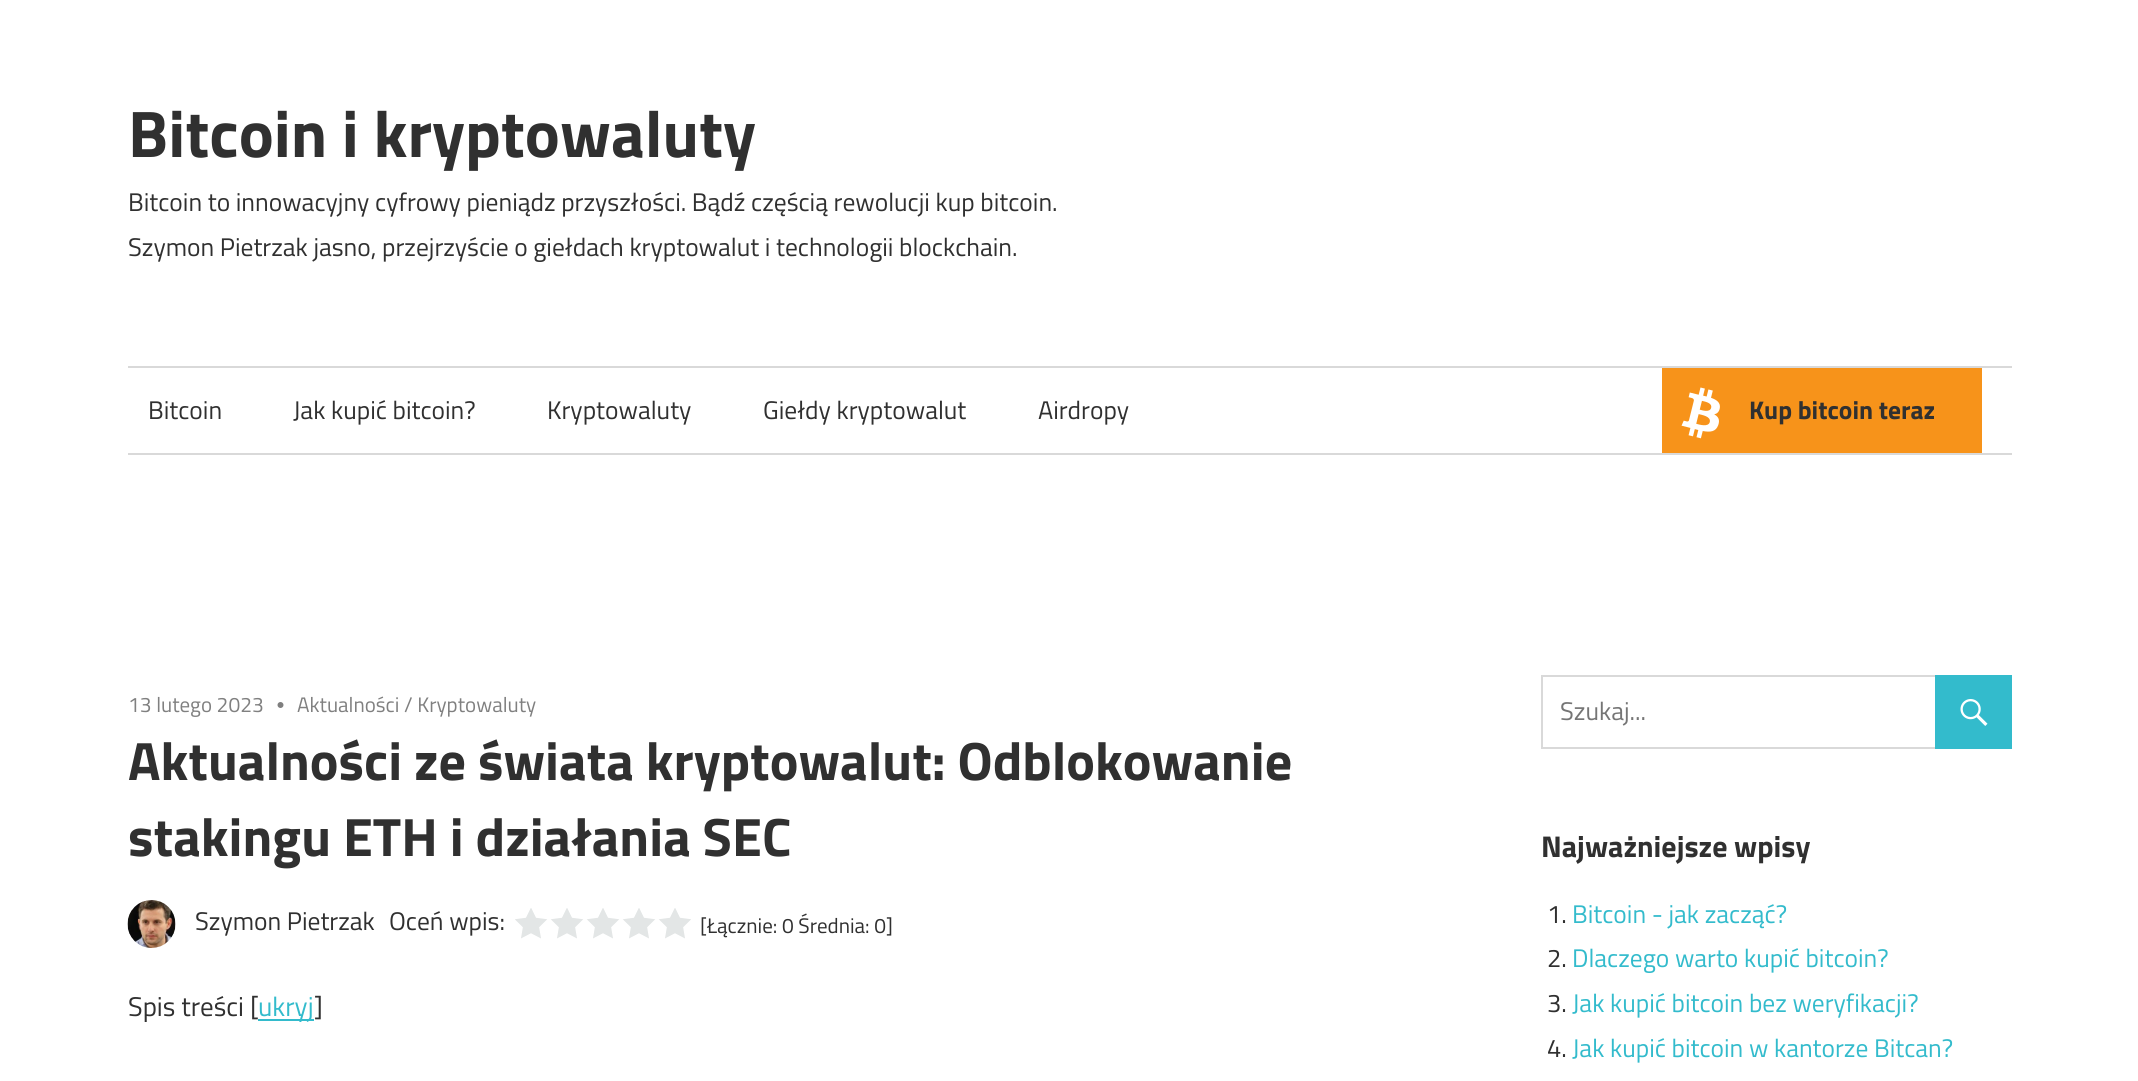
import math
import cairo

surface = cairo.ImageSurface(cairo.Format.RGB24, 2138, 1081)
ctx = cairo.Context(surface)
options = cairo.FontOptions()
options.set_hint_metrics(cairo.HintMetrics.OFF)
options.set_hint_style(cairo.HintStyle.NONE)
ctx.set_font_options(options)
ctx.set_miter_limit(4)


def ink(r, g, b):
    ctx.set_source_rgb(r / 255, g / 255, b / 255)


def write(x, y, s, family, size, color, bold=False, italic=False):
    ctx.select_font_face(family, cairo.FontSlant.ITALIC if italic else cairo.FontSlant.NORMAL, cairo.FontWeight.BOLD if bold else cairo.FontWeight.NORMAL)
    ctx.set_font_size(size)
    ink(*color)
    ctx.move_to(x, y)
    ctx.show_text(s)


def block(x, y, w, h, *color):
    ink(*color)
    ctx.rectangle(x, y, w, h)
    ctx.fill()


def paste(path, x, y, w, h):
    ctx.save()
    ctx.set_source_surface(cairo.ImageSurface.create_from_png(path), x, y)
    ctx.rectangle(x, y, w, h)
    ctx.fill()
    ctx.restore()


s1 = dict(family="Titillium Web", size=66, color=(48, 48, 48), bold=True)
s2 = dict(family="Titillium Web", size=25.5, color=(48, 48, 48))
s3 = dict(family="Titillium Web", size=25.5, color=(48, 48, 48), bold=True)
s4 = dict(family="Titillium Web", size=21, color=(128, 128, 128))
s5 = dict(family="Titillium Web", size=54, color=(48, 48, 48), bold=True)
s6 = dict(family="Titillium Web", size=21, color=(48, 48, 48))
s7 = dict(family="Titillium Web", size=27, color=(48, 48, 48))
s8 = dict(family="Titillium Web", size=27, color=(51, 187, 204))
s9 = dict(family="Titillium Web", size=25.5, color=(117, 117, 117))
s10 = dict(family="Titillium Web", size=30, color=(48, 48, 48), bold=True)
s11 = dict(family="Titillium Web", size=25.5, color=(51, 187, 204))

ink(255, 255, 255)
ctx.paint()
write(128, 157, "Bitcoin i kryptowaluty", **s1)
write(128, 211, "Bitcoin to innowacyjny cyfrowy pieniądz przyszłości. Bądź częścią rewolucji kup bitcoin.", **s2)
write(128, 256, "Szymon Pietrzak jasno, przejrzyście o giełdach kryptowalut i technologii blockchain.", **s2)
block(128, 366, 1884, 2, 217, 217, 217)
block(128, 453, 1884, 2, 217, 217, 217)
write(148, 419, "Bitcoin", **s2)
write(293, 419, "Jak kupić bitcoin?", **s2)
write(547, 419, "Kryptowaluty", **s2)
write(763, 419, "Giełdy kryptowalut", **s2)
write(1038, 419, "Airdropy", **s2)
block(1662, 368, 320, 85, 247, 147, 26)
paste("pic1.png", 1681, 387, 39, 52)
write(1749, 419, "Kup bitcoin teraz", **s3)
write(128, 712, "13 lutego 2023", **s4)
paste("pic2.png", 277, 702, 7, 6)
write(297, 712, "Aktualności / Kryptowaluty", **s4)
write(128, 780, "Aktualności ze świata kryptowalut: Odblokowanie", **s5)
write(128, 856, "stakingu ETH i działania SEC", **s5)
paste("pic3.png", 127, 900, 49, 48)
write(195, 930, "Szymon Pietrzak", **s2)
write(389, 930, "Oceń wpis:", **s2)
paste("pic4.png", 515, 908, 176, 31)
write(700, 933, "[Łącznie: 0 Średnia: 0]", **s6)
write(128, 1016, "Spis treści [", **s7)
block(258, 1019, 56, 2, 51, 187, 204)
write(258, 1016, "ukryj", **s8)
write(314, 1016, "]", **s7)
ctx.rectangle(1542, 676, 469, 72)
ink(217, 217, 217)
ctx.stroke()
write(1560, 720, "Szukaj...", **s9)
block(1935, 675, 77, 74, 51, 187, 204)
paste("pic5.png", 1960, 699, 28, 27)
write(1541, 857, "Najważniejsze wpisy", **s10)
write(1547, 923, "1.", **s2)
write(1572, 923, "Bitcoin - jak zacząć?", **s11)
write(1547, 967, "2.", **s2)
write(1572, 967, "Dlaczego warto kupić bitcoin?", **s11)
write(1547, 1012, "3.", **s2)
write(1572, 1012, "Jak kupić bitcoin bez weryfikacji?", **s11)
write(1547, 1057, "4.", **s2)
write(1572, 1057, "Jak kupić bitcoin w kantorze Bitcan?", **s11)
surface.write_to_png("screenshot.png")
